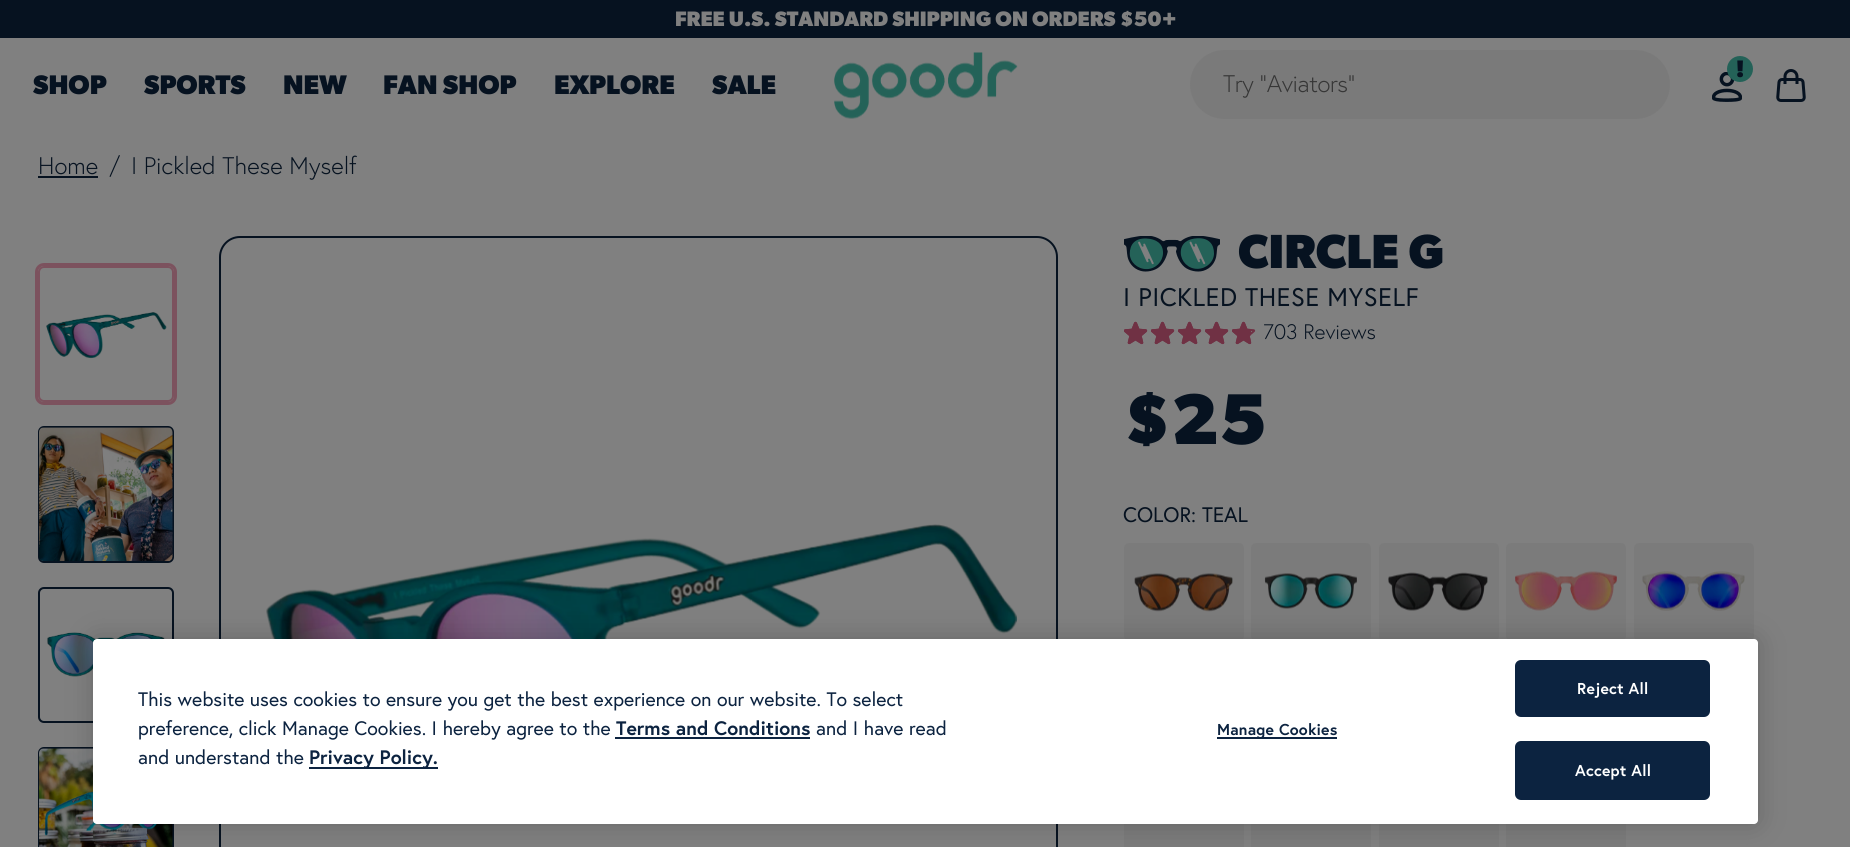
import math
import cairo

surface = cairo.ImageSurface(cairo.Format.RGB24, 1850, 847)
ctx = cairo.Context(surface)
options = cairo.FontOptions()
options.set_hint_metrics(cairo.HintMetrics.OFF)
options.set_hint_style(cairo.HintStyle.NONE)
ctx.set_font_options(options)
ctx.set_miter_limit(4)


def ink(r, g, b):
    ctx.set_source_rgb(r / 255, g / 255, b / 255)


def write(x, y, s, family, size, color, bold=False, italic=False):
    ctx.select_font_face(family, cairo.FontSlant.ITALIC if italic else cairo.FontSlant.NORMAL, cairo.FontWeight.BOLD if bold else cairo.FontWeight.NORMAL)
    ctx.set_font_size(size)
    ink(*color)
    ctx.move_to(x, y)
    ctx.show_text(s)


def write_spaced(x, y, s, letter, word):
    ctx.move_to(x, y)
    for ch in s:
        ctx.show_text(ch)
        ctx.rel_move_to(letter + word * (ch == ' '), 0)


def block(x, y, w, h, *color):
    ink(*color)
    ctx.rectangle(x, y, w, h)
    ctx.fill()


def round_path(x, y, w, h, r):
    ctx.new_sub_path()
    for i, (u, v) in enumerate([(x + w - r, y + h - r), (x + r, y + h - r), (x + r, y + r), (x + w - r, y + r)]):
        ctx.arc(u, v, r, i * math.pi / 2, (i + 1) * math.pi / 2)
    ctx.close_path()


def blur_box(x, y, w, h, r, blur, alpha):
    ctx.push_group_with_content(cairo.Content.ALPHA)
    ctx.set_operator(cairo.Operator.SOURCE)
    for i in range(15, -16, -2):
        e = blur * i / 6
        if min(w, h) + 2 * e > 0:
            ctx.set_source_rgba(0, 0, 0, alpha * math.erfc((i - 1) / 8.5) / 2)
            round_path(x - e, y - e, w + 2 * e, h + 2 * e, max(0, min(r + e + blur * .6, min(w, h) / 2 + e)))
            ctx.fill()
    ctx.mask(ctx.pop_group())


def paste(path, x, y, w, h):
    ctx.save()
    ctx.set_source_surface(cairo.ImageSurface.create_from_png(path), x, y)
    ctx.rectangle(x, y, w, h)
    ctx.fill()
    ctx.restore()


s1 = dict(family="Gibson", size=21, color=(128, 128, 128), bold=True)
s2 = dict(family="Gibson", size=27, color=(6, 18, 32), bold=True)
s3 = dict(family="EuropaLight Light", size=24, color=(6, 18, 32))
s4 = dict(family="Gibson", size=48, color=(6, 18, 32), bold=True)
s5 = dict(family="EuropaLight Light", size=21, color=(6, 18, 32))
s6 = dict(family="Gibson", size=72, color=(6, 18, 32), bold=True)
s7 = dict(family="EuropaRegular", size=21, color=(6, 18, 32))
s8 = dict(family="EuropaRegular", size=19.5, color=(12, 35, 64))
s9 = dict(family="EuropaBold", size=19.5, color=(12, 35, 64), bold=True)

ink(128, 128, 128)
ctx.paint()
block(0, 0, 1850, 38, 6, 18, 32)
write(675, 26, "FREE U.S. STANDARD SHIPPING ON ORDERS $50+", **s1)
write(33, 94, "SHOP", **s2)
write(144, 94, "SPORTS", **s2)
write(283, 94, "NEW", **s2)
write(383, 94, "FAN SHOP", **s2)
write(554, 94, "EXPLORE", **s2)
write(712, 94, "SALE", **s2)
paste("pic1.png", 834, 52, 184, 67)
ink(122, 122, 122)
round_path(1190, 50, 480, 69, 34.5)
ctx.fill()
ctx.select_font_face("EuropaLight Light")
ctx.set_font_size(24)
ink(54, 54, 54)
write_spaced(1223, 92, "Try \"Aviators\"", -0.5, 0)
paste("pic3.png", 1712, 72, 30, 30)
paste("pic2.png", 1727, 56, 26, 26)
paste("pic4.png", 1776, 69, 30, 33)
write(38, 174, "Home", **s3)
block(38, 176, 60, 2, 6, 18, 32)
write(109, 174, "/", **s3)
write(131, 174, "I Pickled These Myself", **s3)
round_path(39, 267, 134, 134, 5)
ink(124, 82, 94)
ctx.stroke()
round_path(36.5, 264.5, 139, 139, 7.5)
ctx.set_line_width(3)
ctx.stroke()
paste("pic5.png", 46, 312, 121, 47)
round_path(39, 427, 134, 135, 5)
ink(6, 18, 32)
ctx.set_line_width(2)
ctx.stroke()
paste("pic6.png", 39, 427, 134, 134)
round_path(39, 588, 134, 134, 5)
ctx.stroke()
paste("pic7.png", 47, 632, 118, 45)
round_path(39, 748, 134, 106, 5)
ctx.stroke()
paste("pic8.png", 39, 748, 134, 99)
round_path(220, 237, 837, 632, 20)
ctx.stroke()
paste("pic9.png", 266, 524, 752, 115)
paste("pic10.png", 1124, 236, 96, 36)
write(1238, 268, "CIRCLE G", **s4)
ctx.select_font_face("EuropaRegular")
ctx.set_font_size(25.5)
write_spaced(1123, 306, "I PICKLED THESE MYSELF", 0.5, 0)
paste("pic11.png", 1124, 321, 24, 24)
paste("pic11.png", 1151, 321, 24, 24)
paste("pic11.png", 1178, 321, 24, 24)
paste("pic11.png", 1205, 321, 24, 24)
paste("pic11.png", 1232, 321, 24, 24)
paste("pic12.png", 1124, 321, 24, 24)
paste("pic12.png", 1151, 321, 24, 24)
paste("pic12.png", 1178, 321, 24, 24)
paste("pic12.png", 1205, 321, 24, 24)
paste("pic13.png", 1232, 321, 19, 24)
write(1263, 339, "703 Reviews", **s5)
write(1123, 444, "$25", **s6)
write(1123, 522, "COLOR: TEAL", **s7)
ink(123, 123, 123)
round_path(1124, 543, 120, 98, 5)
ctx.fill()
paste("pic14.png", 1134, 573, 99, 39)
round_path(1251, 543, 120, 98, 5)
ctx.fill()
paste("pic15.png", 1264, 573, 93, 36)
round_path(1379, 543, 120, 98, 5)
ctx.fill()
paste("pic16.png", 1388, 572, 100, 39)
round_path(1506, 543, 120, 98, 5)
ctx.fill()
paste("pic17.png", 1515, 571, 102, 40)
round_path(1634, 543, 120, 98, 5)
ctx.fill()
paste("pic18.png", 1642, 571, 103, 40)
block(1124, 824, 120, 23, 123, 123, 123)
ctx.rectangle(1126.5, 755.5, 115, 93)
ctx.set_line_width(5)
ctx.stroke()
block(1251, 824, 120, 23, 123, 123, 123)
ctx.rectangle(1253.5, 755.5, 115, 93)
ctx.stroke()
block(1379, 824, 120, 23, 123, 123, 123)
ctx.rectangle(1381.5, 755.5, 115, 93)
ctx.stroke()
block(1506, 824, 120, 23, 123, 123, 123)
ctx.rectangle(1508.5, 755.5, 115, 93)
ctx.stroke()
ink(0, 0, 0)
blur_box(93, 639, 1665, 185, 4, 13.5, 0.2)
ink(255, 255, 255)
round_path(93, 639, 1665, 185, 4)
ctx.fill()
write(138, 706, "This website uses cookies to ensure you get the best experience on our website. To select", **s8)
write(138, 735, "preference, click Manage Cookies. I hereby agree to the", **s8)
write(616, 735, "Terms and Conditions", **s9)
block(615, 737, 195, 2, 12, 35, 64)
write(816, 735, "and I have read", **s8)
write(138, 764, "and understand the", **s8)
block(309, 767, 129, 2, 12, 35, 64)
write(309, 764, "Privacy Policy.", **s9)
block(1217, 737, 120, 2, 12, 35, 64)
ctx.set_font_size(15.75)
write_spaced(1217, 735, "Manage Cookies", 0.2, 0)
round_path(1516, 661, 193, 55, 5)
ctx.fill_preserve()
ctx.set_line_width(2)
ctx.stroke()
ink(255, 255, 255)
write_spaced(1577, 694, "Reject All", 0.2, 0)
ink(12, 35, 64)
round_path(1516, 742, 193, 57, 5)
ctx.fill_preserve()
ctx.stroke()
ink(255, 255, 255)
write_spaced(1575, 776, "Accept All", 0.2, 0)
surface.write_to_png("screenshot.png")
